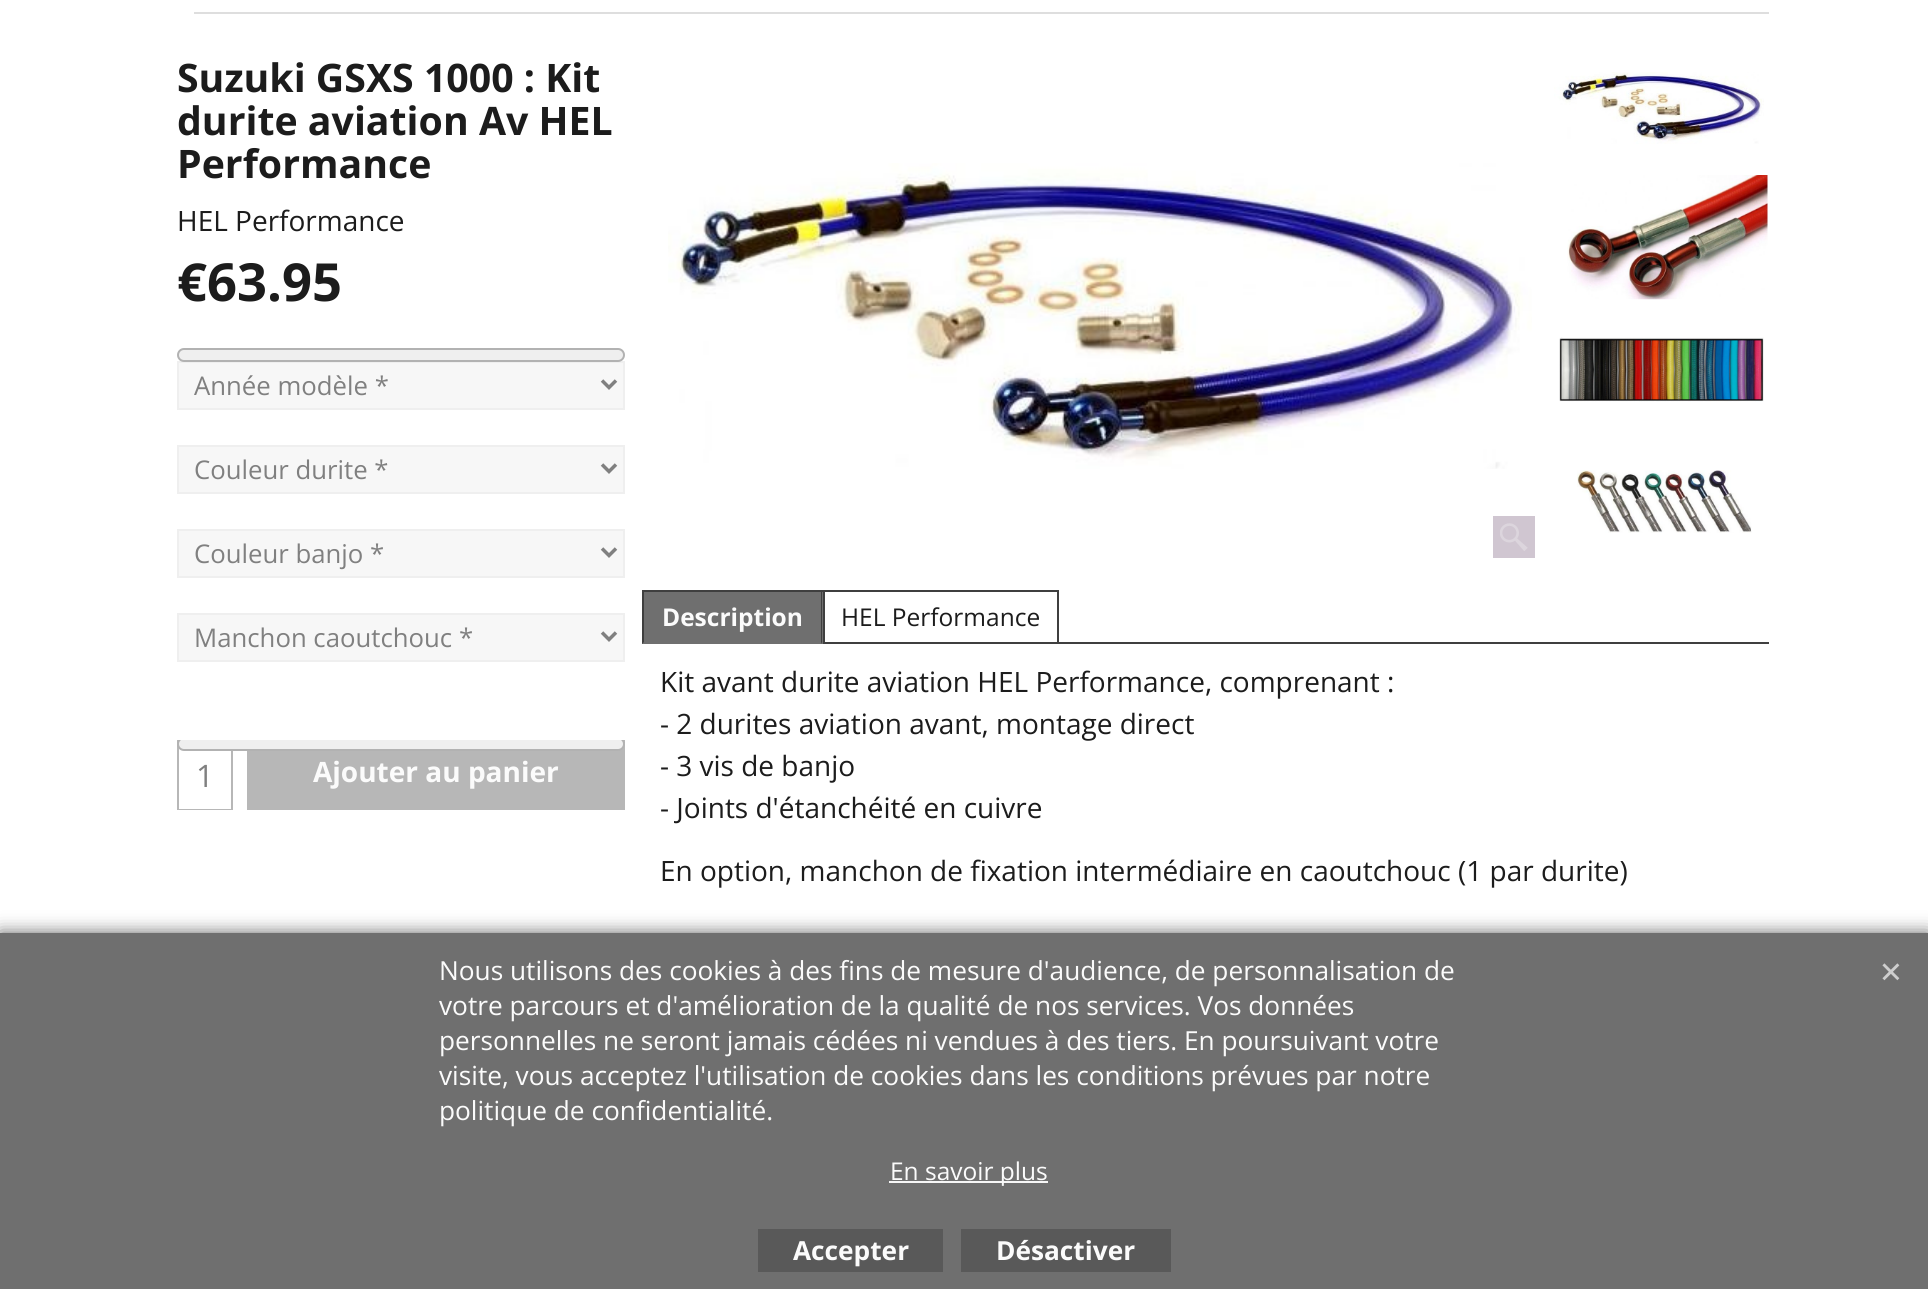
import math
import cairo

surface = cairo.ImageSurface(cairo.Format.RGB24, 1928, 1289)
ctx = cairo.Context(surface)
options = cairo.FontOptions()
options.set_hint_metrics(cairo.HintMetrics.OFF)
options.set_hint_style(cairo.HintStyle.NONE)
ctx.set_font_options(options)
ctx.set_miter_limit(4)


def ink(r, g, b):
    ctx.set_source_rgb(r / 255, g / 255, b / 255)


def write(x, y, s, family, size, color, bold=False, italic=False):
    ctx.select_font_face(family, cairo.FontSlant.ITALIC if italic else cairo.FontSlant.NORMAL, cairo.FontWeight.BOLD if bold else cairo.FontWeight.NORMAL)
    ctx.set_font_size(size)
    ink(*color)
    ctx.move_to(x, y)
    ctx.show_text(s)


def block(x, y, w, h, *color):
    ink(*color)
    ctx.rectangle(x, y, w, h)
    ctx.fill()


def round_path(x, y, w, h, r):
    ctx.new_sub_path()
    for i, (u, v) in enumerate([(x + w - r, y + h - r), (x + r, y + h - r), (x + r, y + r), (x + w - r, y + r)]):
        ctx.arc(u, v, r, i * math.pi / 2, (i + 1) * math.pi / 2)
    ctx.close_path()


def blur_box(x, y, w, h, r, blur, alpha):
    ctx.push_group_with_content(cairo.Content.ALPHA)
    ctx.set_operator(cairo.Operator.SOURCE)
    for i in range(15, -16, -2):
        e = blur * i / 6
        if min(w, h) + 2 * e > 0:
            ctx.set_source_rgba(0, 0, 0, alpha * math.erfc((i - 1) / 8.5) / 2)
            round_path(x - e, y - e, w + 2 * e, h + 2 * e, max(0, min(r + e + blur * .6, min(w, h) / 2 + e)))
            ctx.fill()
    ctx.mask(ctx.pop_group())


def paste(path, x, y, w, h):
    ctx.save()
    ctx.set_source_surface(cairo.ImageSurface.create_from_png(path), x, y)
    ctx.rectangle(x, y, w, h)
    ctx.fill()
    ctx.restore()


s1 = dict(family="Open Sans", size=39.25, color=(28, 28, 28), bold=True)
s2 = dict(family="Open Sans", size=28, color=(28, 28, 28))
s3 = dict(family="Open Sans", size=52.5, color=(28, 28, 28), bold=True)
s4 = dict(family="Open Sans", size=25.75, color=(128, 128, 128))
s5 = dict(family="Open Sans", size=31, color=(128, 128, 128))
s6 = dict(family="Open Sans", size=28, color=(251, 251, 251), bold=True)
s7 = dict(family="Open Sans", size=24.5, color=(251, 251, 251), bold=True)
s8 = dict(family="Open Sans", size=24.5, color=(28, 28, 28))
s9 = dict(family="Open Sans", size=26.25, color=(251, 251, 251))
s10 = dict(family="Open Sans", size=24.5, color=(251, 251, 251))
s11 = dict(family="Open Sans", size=26.25, color=(251, 251, 251), bold=True)

ink(255, 255, 255)
ctx.paint()
block(194, 12, 1575, 2, 222, 222, 222)
write(177, 92, "Suzuki GSXS 1000 : Kit", **s1)
write(177, 135, "durite aviation Av HEL", **s1)
write(177, 178, "Performance", **s1)
write(177, 231, "HEL Performance", **s2)
write(177, 301, "€63.95", **s3)
ink(247, 247, 247)
ctx.rectangle(178, 362, 446, 47)
ctx.fill_preserve()
ink(239, 239, 239)
ctx.stroke()
round_path(178, 349, 446, 12, 6)
ctx.fill_preserve()
ink(178, 178, 178)
ctx.stroke()
ctx.new_path()
ctx.move_to(602, 380.5)
ctx.line_to(609, 387.5)
ctx.line_to(616, 380.5)
ink(128, 128, 128)
ctx.set_line_width(3.5)
ctx.stroke()
write(194, 395, "Année modèle *", **s4)
ink(247, 247, 247)
ctx.rectangle(178, 446, 446, 47)
ctx.fill_preserve()
ink(239, 239, 239)
ctx.set_line_width(2)
ctx.stroke()
ctx.new_path()
ctx.move_to(602, 464.5)
ctx.line_to(609, 471.5)
ctx.line_to(616, 464.5)
ink(128, 128, 128)
ctx.set_line_width(3.5)
ctx.stroke()
write(194, 479, "Couleur durite *", **s4)
ink(247, 247, 247)
ctx.rectangle(178, 530, 446, 47)
ctx.fill_preserve()
ink(239, 239, 239)
ctx.set_line_width(2)
ctx.stroke()
ctx.new_path()
ctx.move_to(602, 548.5)
ctx.line_to(609, 555.5)
ctx.line_to(616, 548.5)
ink(128, 128, 128)
ctx.set_line_width(3.5)
ctx.stroke()
write(194, 563, "Couleur banjo *", **s4)
ink(247, 247, 247)
ctx.rectangle(178, 614, 446, 47)
ctx.fill_preserve()
ink(239, 239, 239)
ctx.set_line_width(2)
ctx.stroke()
ctx.new_path()
ctx.move_to(602, 632.5)
ctx.line_to(609, 639.5)
ctx.line_to(616, 632.5)
ink(128, 128, 128)
ctx.set_line_width(3.5)
ctx.stroke()
write(194, 647, "Manchon caoutchouc *", **s4)
ctx.rectangle(178, 741, 54, 68)
ink(183, 183, 183)
ctx.set_line_width(2)
ctx.stroke()
block(247, 740, 378, 70, 183, 183, 183)
ctx.save()
ctx.rectangle(177, 740, 448, 70)
ctx.clip()
ink(239, 239, 239)
round_path(178, 738, 446, 12, 6)
ctx.fill_preserve()
ink(178, 178, 178)
ctx.stroke()
ctx.restore()
block(179, 808, 52, 1, 255, 255, 255)
write(196, 787, "1", **s5)
write(313, 782, "Ajouter au panier", **s6)
paste("pic1.png", 668, 163, 864, 306)
block(1493, 516, 42, 42, 208, 198, 209)
paste("pic2.png", 1500, 523, 28, 28)
paste("pic3.png", 1554, 72, 210, 72)
paste("pic4.png", 1567, 175, 201, 125)
paste("pic5.png", 1559, 337, 205, 65)
paste("pic6.png", 1577, 470, 175, 63)
block(642, 592, 181, 52, 111, 111, 111)
block(642, 590, 417, 2, 63, 63, 63)
ctx.new_path()
ctx.move_to(822, 590)
ctx.line_to(822, 644)
ctx.line_to(821, 642)
ctx.line_to(821, 592)
ctx.close_path()
ctx.fill()
ctx.new_path()
ctx.move_to(642, 644)
ctx.line_to(642, 590)
ctx.line_to(644, 592)
ctx.line_to(644, 642)
ctx.close_path()
ctx.fill()
write(662, 626, "Description", **s7)
block(1057, 590, 2, 52, 63, 63, 63)
block(823, 590, 2, 52, 63, 63, 63)
write(841, 626, "HEL Performance", **s8)
block(823, 642, 946, 2, 63, 63, 63)
write(660, 692, "Kit avant durite aviation HEL Performance, comprenant :", **s2)
write(660, 734, "- 2 durites aviation avant, montage direct", **s2)
write(660, 776, "- 3 vis de banjo", **s2)
write(660, 818, "- Joints d'étanchéité en cuivre", **s2)
write(660, 881, "En option, manchon de fixation intermédiaire en caoutchouc (1 par durite)", **s2)
ink(102, 102, 102)
blur_box(0, 933, 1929, 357, 0, 9, 1)
block(0, 933, 1928, 356, 111, 111, 111)
write(439, 980, "Nous utilisons des cookies à des fins de mesure d'audience, de personnalisation de", **s9)
write(439, 1015, "votre parcours et d'amélioration de la qualité de nos services. Vos données", **s9)
write(439, 1050, "personnelles ne seront jamais cédées ni vendues à des tiers. En poursuivant votre", **s9)
write(439, 1085, "visite, vous acceptez l'utilisation de cookies dans les conditions prévues par notre", **s9)
write(439, 1120, "politique de confidentialité.", **s9)
block(889, 1181, 159, 2, 247, 247, 247)
write(890, 1180, "En savoir plus", **s10)
paste("pic7.png", 1882, 963, 18, 18)
block(758, 1229, 185, 43, 89, 89, 89)
write(793, 1260, "Accepter", **s11)
block(961, 1229, 210, 43, 89, 89, 89)
write(996, 1260, "Désactiver", **s11)
surface.write_to_png("screenshot.png")
